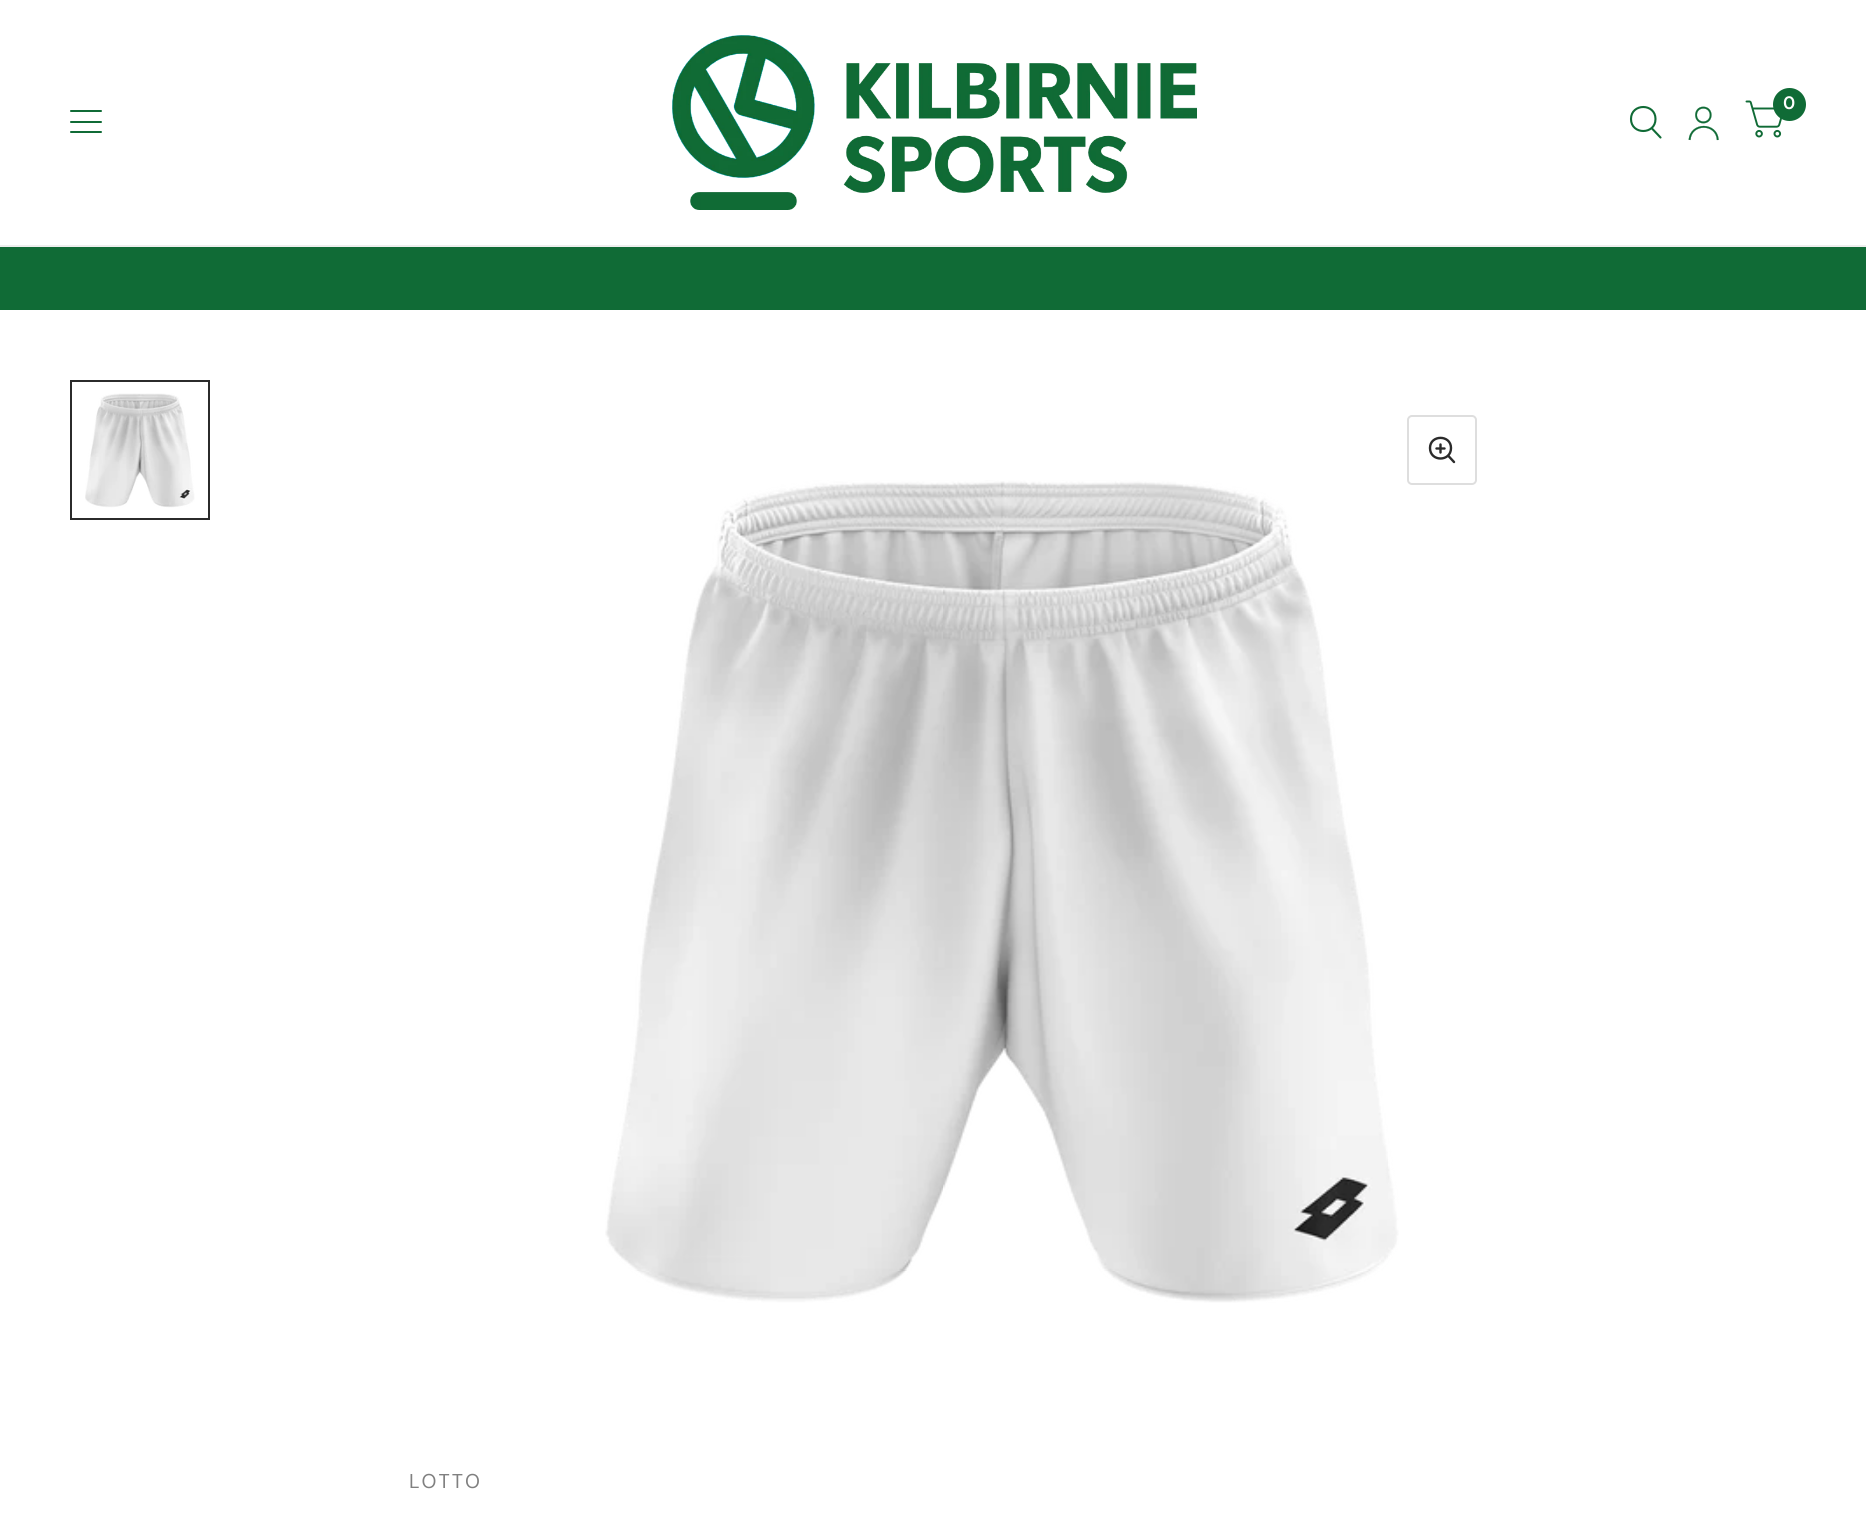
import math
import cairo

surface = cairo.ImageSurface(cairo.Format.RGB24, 1866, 1515)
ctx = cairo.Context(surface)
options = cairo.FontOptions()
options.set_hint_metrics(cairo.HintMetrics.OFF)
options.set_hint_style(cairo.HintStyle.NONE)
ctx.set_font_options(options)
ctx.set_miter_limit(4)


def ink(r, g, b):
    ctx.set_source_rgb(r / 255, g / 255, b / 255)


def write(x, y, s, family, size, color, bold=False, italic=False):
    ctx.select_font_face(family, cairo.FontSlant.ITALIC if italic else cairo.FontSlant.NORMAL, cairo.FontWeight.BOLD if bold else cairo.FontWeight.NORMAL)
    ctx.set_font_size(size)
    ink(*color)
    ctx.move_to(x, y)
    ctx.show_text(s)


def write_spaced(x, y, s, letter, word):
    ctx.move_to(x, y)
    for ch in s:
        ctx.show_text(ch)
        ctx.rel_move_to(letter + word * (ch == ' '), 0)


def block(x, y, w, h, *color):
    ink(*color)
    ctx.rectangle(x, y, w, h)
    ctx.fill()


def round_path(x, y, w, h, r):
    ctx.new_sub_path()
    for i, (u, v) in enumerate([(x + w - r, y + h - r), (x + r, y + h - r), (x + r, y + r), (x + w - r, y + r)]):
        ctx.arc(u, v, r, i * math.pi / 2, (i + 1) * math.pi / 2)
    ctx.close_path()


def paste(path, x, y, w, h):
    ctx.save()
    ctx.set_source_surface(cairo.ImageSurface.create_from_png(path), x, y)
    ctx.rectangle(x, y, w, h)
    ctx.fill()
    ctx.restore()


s1 = dict(family="DM Sans SemiBold", size=18, color=(255, 255, 255))

ink(255, 255, 255)
ctx.paint()
block(0, 245, 1866, 2, 238, 238, 238)
paste("pic1.png", 672, 35, 525, 175)
paste("pic2.png", 1745, 100, 37, 38)
ink(16, 107, 54)
ctx.arc(1789.5, 104.5, 16.5, 0, 2 * math.pi)
ctx.fill()
write(1783, 109, "0", **s1)
ctx.new_path()
ctx.move_to(1652, 128.5)
ctx.line_to(1660.5, 137.5)
ctx.move_to(1655.5, 119)
ctx.curve_to(1655.5, 135, 1631, 135, 1631, 119)
ctx.curve_to(1631, 103, 1655.5, 103, 1655.5, 119)
ctx.close_path()
ink(16, 107, 54)
ctx.set_line_width(2.1)
ctx.set_line_cap(cairo.LineCap.ROUND)
ctx.set_line_join(cairo.LineJoin.ROUND)
ctx.stroke()
paste("pic3.png", 1688, 106, 31, 35)
round_path(70, 110, 32, 2, 1)
ctx.fill()
round_path(70, 121, 32, 2, 1)
ctx.fill()
round_path(70, 131, 32, 2, 1)
ctx.fill()
block(0, 247, 1866, 63, 16, 107, 54)
paste("pic4.png", 85, 393, 110, 115)
ctx.rectangle(71, 381, 138, 138)
ink(43, 43, 43)
ctx.set_line_width(2)
ctx.set_line_cap(cairo.LineCap.BUTT)
ctx.set_line_join(cairo.LineJoin.MITER)
ctx.stroke()
round_path(1408, 416, 68, 68, 4)
ink(222, 222, 222)
ctx.stroke()
ctx.new_path()
ctx.move_to(1436.5, 448.5)
ctx.line_to(1444.5, 448.5)
ctx.move_to(1440.5, 444.5)
ctx.line_to(1440.5, 452.5)
ctx.move_to(1448, 455.5)
ctx.line_to(1454, 462)
ctx.move_to(1451, 448)
ctx.curve_to(1451, 462, 1430, 462, 1430, 448)
ctx.curve_to(1430, 434.5, 1451, 434.5, 1451, 448)
ctx.close_path()
ink(43, 43, 43)
ctx.set_line_width(2.4)
ctx.set_line_cap(cairo.LineCap.ROUND)
ctx.set_line_join(cairo.LineJoin.ROUND)
ctx.stroke()
paste("pic5.png", 605, 480, 794, 823)
ctx.select_font_face("DM Sans")
ctx.set_font_size(20)
ink(128, 128, 128)
write_spaced(409, 1488, "LOTTO", 2, 0)
surface.write_to_png("screenshot.png")
